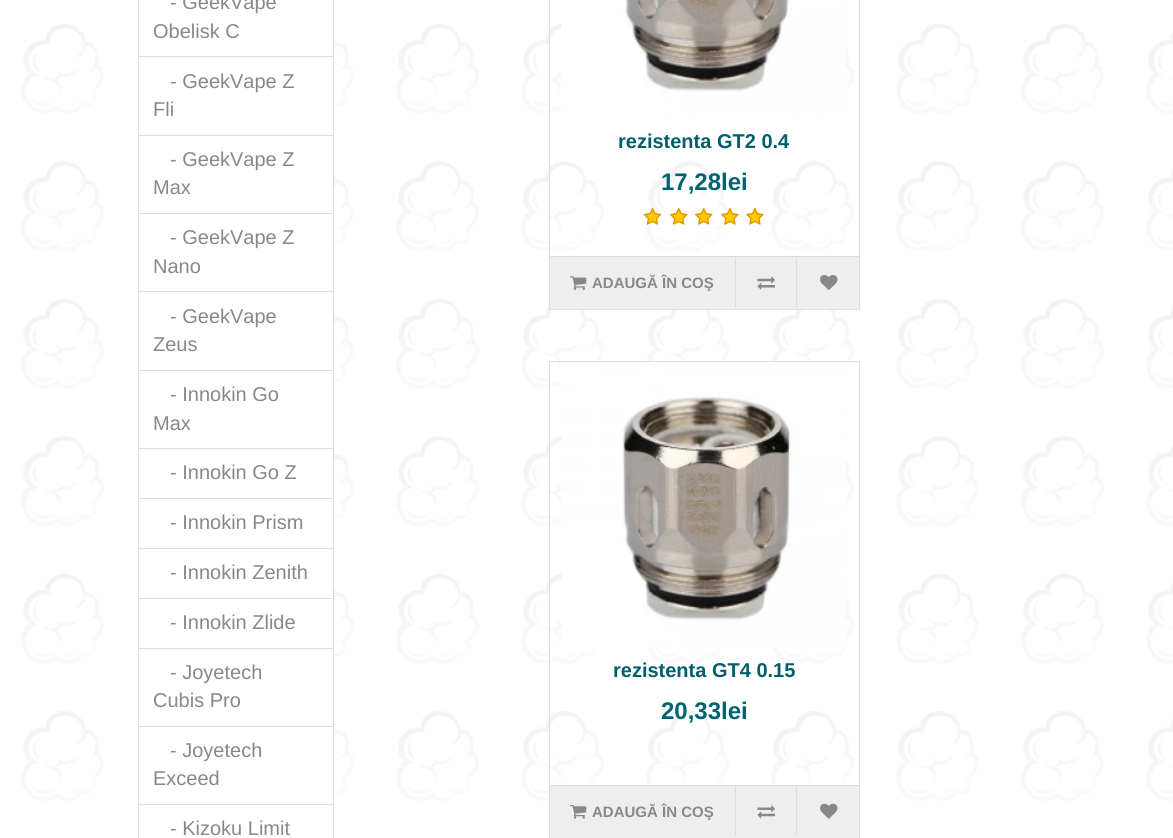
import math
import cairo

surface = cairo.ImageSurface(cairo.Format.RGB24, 1173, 838)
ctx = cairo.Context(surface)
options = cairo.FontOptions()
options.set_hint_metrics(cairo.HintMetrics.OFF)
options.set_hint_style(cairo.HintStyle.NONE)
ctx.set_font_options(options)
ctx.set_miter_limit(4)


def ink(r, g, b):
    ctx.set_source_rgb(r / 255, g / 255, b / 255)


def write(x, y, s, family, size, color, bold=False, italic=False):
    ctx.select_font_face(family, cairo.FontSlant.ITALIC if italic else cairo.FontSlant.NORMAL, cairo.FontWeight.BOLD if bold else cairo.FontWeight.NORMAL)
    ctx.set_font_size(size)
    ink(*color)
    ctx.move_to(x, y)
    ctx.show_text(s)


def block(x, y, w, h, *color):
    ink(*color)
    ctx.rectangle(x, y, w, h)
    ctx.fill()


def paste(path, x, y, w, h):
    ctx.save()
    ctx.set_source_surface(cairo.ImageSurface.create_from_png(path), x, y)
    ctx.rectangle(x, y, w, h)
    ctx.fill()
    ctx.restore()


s1 = dict(family="Liberation Sans", size=20, color=(136, 136, 136))
s2 = dict(family="Liberation Sans", size=20, color=(0, 94, 108), bold=True)
s3 = dict(family="Liberation Sans", size=24, color=(0, 99, 116), bold=True)
s4 = dict(family="Liberation Sans", size=15, color=(136, 136, 136), bold=True)

ink(255, 255, 255)
ctx.paint()
paste("pic1.png", 21, 24, 1152, 777)
block(148, 24, 185, 32, 255, 255, 255)
ctx.rectangle(138.5, -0.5, 195, 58)
ink(221, 221, 221)
ctx.set_line_width(1)
ctx.stroke()
write(170, 9, "- GeekVape", **s1)
write(153, 38, "Obelisk C", **s1)
block(139, 57, 194, 57, 255, 255, 255)
ctx.rectangle(138.5, 56.5, 195, 79)
ink(221, 221, 221)
ctx.stroke()
write(170, 88, "- GeekVape Z", **s1)
write(153, 116, "Fli", **s1)
block(148, 161, 185, 52, 255, 255, 255)
ctx.rectangle(138.5, 135.5, 195, 78)
ink(221, 221, 221)
ctx.stroke()
write(170, 166, "- GeekVape Z", **s1)
write(153, 194, "Max", **s1)
block(146, 214, 187, 37, 255, 255, 255)
ctx.rectangle(138.5, 213.5, 195, 79)
ink(221, 221, 221)
ctx.stroke()
write(170, 244, "- GeekVape Z", **s1)
write(153, 273, "Nano", **s1)
ink(255, 255, 255)
ctx.rectangle(138.5, 291.5, 195, 79)
ctx.fill_preserve()
ink(221, 221, 221)
ctx.stroke()
write(170, 323, "- GeekVape", **s1)
write(153, 351, "Zeus", **s1)
block(147, 371, 186, 77, 255, 255, 255)
ctx.rectangle(138.5, 370.5, 195, 78)
ink(221, 221, 221)
ctx.stroke()
write(170, 401, "- Innokin Go", **s1)
write(153, 430, "Max", **s1)
block(146, 449, 187, 49, 255, 255, 255)
ctx.rectangle(138.5, 448.5, 195, 50)
ink(221, 221, 221)
ctx.stroke()
write(170, 479, "- Innokin Go Z", **s1)
block(146, 499, 187, 27, 255, 255, 255)
ctx.rectangle(138.5, 498.5, 195, 50)
ink(221, 221, 221)
ctx.stroke()
write(170, 529, "- Innokin Prism", **s1)
block(152, 573, 181, 25, 255, 255, 255)
ctx.rectangle(138.5, 548.5, 195, 50)
ink(221, 221, 221)
ctx.stroke()
write(170, 579, "- Innokin Zenith", **s1)
block(146, 599, 187, 49, 255, 255, 255)
ctx.rectangle(138.5, 598.5, 195, 50)
ink(221, 221, 221)
ctx.stroke()
write(170, 629, "- Innokin Zlide", **s1)
block(148, 649, 185, 77, 255, 255, 255)
ctx.rectangle(138.5, 648.5, 195, 79)
ink(221, 221, 221)
ctx.stroke()
write(170, 679, "- Joyetech", **s1)
write(153, 707, "Cubis Pro", **s1)
block(139, 727, 194, 74, 255, 255, 255)
ctx.rectangle(138.5, 726.5, 195, 78)
ink(221, 221, 221)
ctx.stroke()
write(170, 757, "- Joyetech", **s1)
write(153, 785, "Exceed", **s1)
ctx.rectangle(138.5, 804.5, 195, 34)
ink(221, 221, 221)
ctx.stroke()
write(170, 835, "- Kizoku Limit", **s1)
ctx.rectangle(549.5, -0.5, 310, 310)
ink(221, 221, 221)
ctx.stroke()
paste("pic2.png", 561, 0, 285, 113)
write(618, 148, "rezistenta GT2 0.4", **s2)
write(661, 190, "17,28lei", **s3)
paste("pic3.png", 643, 208, 19, 17)
paste("pic4.png", 643, 208, 19, 17)
paste("pic5.png", 670, 208, 18, 17)
paste("pic6.png", 670, 208, 18, 17)
paste("pic7.png", 695, 208, 18, 17)
paste("pic8.png", 695, 208, 18, 17)
paste("pic9.png", 721, 208, 18, 17)
paste("pic10.png", 721, 208, 18, 17)
paste("pic11.png", 746, 208, 18, 17)
paste("pic12.png", 746, 208, 18, 17)
block(550, 257, 309, 52, 238, 238, 238)
block(550, 256, 309, 1, 221, 221, 221)
paste("pic13.png", 570, 276, 17, 14)
write(592, 288, "ADAUGĂ ÎN COŞ", **s4)
block(735, 258, 1, 50, 221, 221, 221)
paste("pic14.png", 757, 276, 18, 14)
block(796, 258, 1, 50, 221, 221, 221)
paste("pic15.png", 820, 275, 18, 15)
ctx.rectangle(549.5, 361.5, 310, 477)
ctx.stroke()
paste("pic16.png", 561, 362, 285, 285)
write(613, 677, "rezistenta GT4 0.15", **s2)
write(661, 719, "20,33lei", **s3)
block(550, 786, 309, 52, 238, 238, 238)
block(550, 785, 309, 1, 221, 221, 221)
paste("pic17.png", 570, 805, 17, 14)
write(592, 817, "ADAUGĂ ÎN COŞ", **s4)
block(735, 786, 1, 50, 221, 221, 221)
paste("pic18.png", 757, 805, 18, 14)
block(796, 786, 1, 50, 221, 221, 221)
paste("pic19.png", 820, 803, 18, 16)
surface.write_to_png("screenshot.png")
